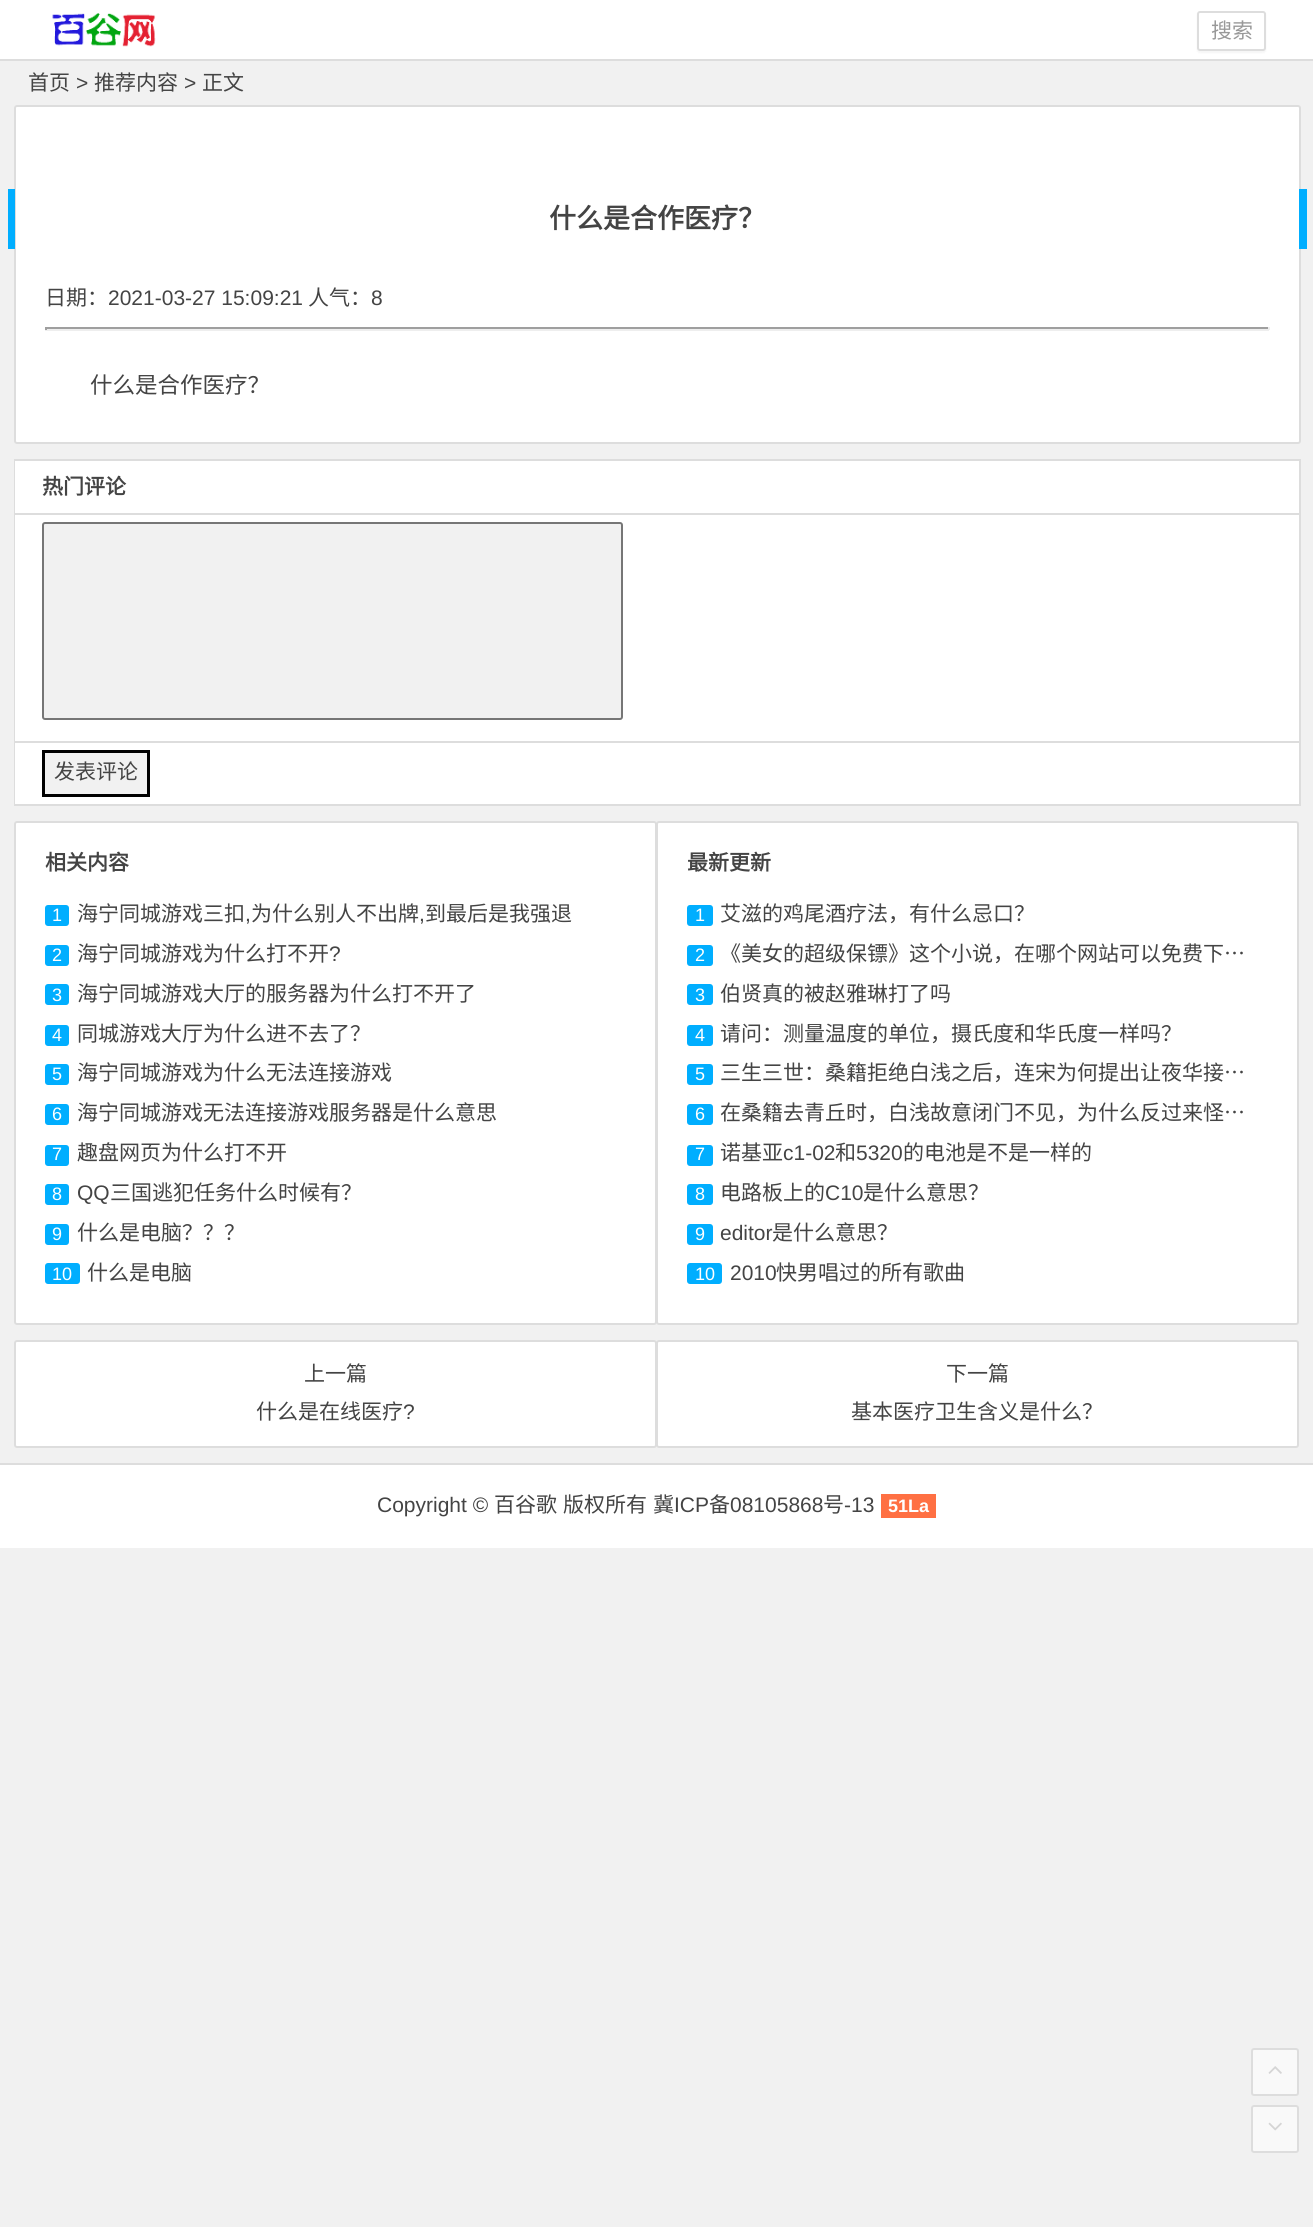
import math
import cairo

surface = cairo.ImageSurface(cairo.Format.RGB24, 1313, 2227)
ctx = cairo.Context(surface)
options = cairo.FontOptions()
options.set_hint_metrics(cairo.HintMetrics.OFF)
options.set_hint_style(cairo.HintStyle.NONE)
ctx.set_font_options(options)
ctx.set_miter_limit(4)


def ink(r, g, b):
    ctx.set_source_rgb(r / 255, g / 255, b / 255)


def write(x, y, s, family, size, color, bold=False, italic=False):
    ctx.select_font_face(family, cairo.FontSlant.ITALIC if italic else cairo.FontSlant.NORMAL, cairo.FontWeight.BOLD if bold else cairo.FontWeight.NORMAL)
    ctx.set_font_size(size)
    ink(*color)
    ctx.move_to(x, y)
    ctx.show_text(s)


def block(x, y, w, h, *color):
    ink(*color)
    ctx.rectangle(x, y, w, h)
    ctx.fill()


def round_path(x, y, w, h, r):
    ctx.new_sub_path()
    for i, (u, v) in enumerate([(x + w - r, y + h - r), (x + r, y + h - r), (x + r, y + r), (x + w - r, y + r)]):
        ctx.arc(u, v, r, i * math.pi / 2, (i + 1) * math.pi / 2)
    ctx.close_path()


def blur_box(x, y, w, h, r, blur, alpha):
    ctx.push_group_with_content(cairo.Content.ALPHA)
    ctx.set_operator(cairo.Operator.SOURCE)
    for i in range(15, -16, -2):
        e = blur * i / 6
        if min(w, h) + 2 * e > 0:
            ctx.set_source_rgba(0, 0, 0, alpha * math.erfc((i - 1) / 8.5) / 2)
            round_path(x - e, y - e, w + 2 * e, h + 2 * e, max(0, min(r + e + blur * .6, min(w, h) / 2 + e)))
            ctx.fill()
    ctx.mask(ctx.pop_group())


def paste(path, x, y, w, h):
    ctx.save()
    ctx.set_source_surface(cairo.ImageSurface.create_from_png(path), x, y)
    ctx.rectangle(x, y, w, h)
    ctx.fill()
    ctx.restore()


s1 = dict(family="Noto Sans CJK SC", size=21, color=(153, 153, 153))
s2 = dict(family="Noto Sans CJK SC", size=21, color=(68, 68, 68))
s3 = dict(family="Liberation Sans", size=21, color=(68, 68, 68))
s4 = dict(family="Noto Sans CJK SC", size=27, color=(68, 68, 68), bold=True)
s5 = dict(family="Noto Sans CJK SC", size=22.5, color=(68, 68, 68))
s6 = dict(family="Noto Sans CJK SC", size=21, color=(68, 68, 68), bold=True)
s7 = dict(family="Liberation Sans", size=18, color=(255, 255, 255))
s8 = dict(family="Liberation Sans", size=18, color=(255, 255, 255), bold=True)

ink(241, 241, 241)
ctx.paint()
block(0, 0, 1313, 59, 255, 255, 255)
block(0, 59, 1313, 2, 221, 221, 221)
paste("pic1.png", 52, 13, 104, 34)
ink(0, 0, 0)
blur_box(1197, 12, 69, 41, 3, 1, 0.04)
ink(255, 255, 255)
round_path(1198, 12, 67, 38, 2)
ctx.fill_preserve()
ink(221, 221, 221)
ctx.stroke()
write(1211, 38, "搜索", **s1)
write(28, 90, "首页", **s2)
write(76, 90, ">", **s3)
write(94, 90, "推荐内容", **s2)
write(184, 90, ">", **s3)
write(202, 90, "正文", **s2)
ink(255, 255, 255)
round_path(15, 106, 1285, 337, 2)
ctx.fill_preserve()
ink(221, 221, 221)
ctx.stroke()
block(1299, 189, 8, 60, 0, 174, 255)
block(8, 189, 7, 60, 0, 174, 255)
write(549, 228, "什么是合作医疗？", **s4)
write(45, 305, "日期：", **s2)
write(108, 305, "2021-03-27 15:09:21", **s3)
write(308, 305, "人气：", **s2)
write(371, 305, "8", **s3)
block(45, 327, 1224, 2, 159, 159, 159)
block(1268, 327, 2, 3, 238, 238, 238)
block(45, 329, 1224, 2, 238, 238, 238)
block(45, 327, 2, 3, 159, 159, 159)
write(90, 393, "什么是合作医疗？", **s5)
block(14, 459, 1287, 2, 221, 221, 221)
block(14, 459, 2, 347, 221, 221, 221)
block(15, 461, 1284, 52, 255, 255, 255)
block(1299, 461, 2, 345, 221, 221, 221)
block(15, 513, 1286, 2, 221, 221, 221)
write(42, 494, "热门评论", **s6)
block(15, 515, 1284, 226, 255, 255, 255)
block(15, 741, 1286, 2, 221, 221, 221)
ink(241, 241, 241)
round_path(43, 523, 579, 196, 2)
ctx.fill_preserve()
ink(118, 118, 118)
ctx.stroke()
block(15, 743, 1284, 61, 255, 255, 255)
block(15, 804, 1286, 2, 221, 221, 221)
ink(241, 241, 241)
ctx.rectangle(43.5, 751.5, 105, 44)
ctx.fill_preserve()
ink(0, 0, 0)
ctx.set_line_width(3)
ctx.stroke()
write(54, 779, "发表评论", **s2)
ink(255, 255, 255)
round_path(15, 822, 641, 502, 2)
ctx.fill_preserve()
ink(221, 221, 221)
ctx.set_line_width(2)
ctx.stroke()
write(45, 870, "相关内容", **s6)
ink(0, 174, 255)
round_path(45, 905, 24, 21, 3)
ctx.fill()
write(52, 921, "1", **s7)
write(77, 921, "海宁同城游戏三扣", **s2)
write(245, 921, ",", **s3)
write(251, 921, "为什么别人不出牌", **s2)
write(419, 921, ",", **s3)
write(425, 921, "到最后是我强退", **s2)
ink(0, 174, 255)
round_path(45, 945, 24, 21, 3)
ctx.fill()
write(52, 961, "2", **s7)
write(77, 961, "海宁同城游戏为什么打不开", **s2)
write(329, 961, "?", **s3)
ink(0, 174, 255)
round_path(45, 984, 24, 21, 3)
ctx.fill()
write(52, 1001, "3", **s7)
write(77, 1001, "海宁同城游戏大厅的服务器为什么打不开了", **s2)
ink(0, 174, 255)
round_path(45, 1025, 24, 21, 3)
ctx.fill()
write(52, 1041, "4", **s7)
write(77, 1041, "同城游戏大厅为什么进不去了？", **s2)
ink(0, 174, 255)
round_path(45, 1064, 24, 21, 3)
ctx.fill()
write(52, 1080, "5", **s7)
write(77, 1080, "海宁同城游戏为什么无法连接游戏", **s2)
ink(0, 174, 255)
round_path(45, 1104, 24, 21, 3)
ctx.fill()
write(52, 1120, "6", **s7)
write(77, 1120, "海宁同城游戏无法连接游戏服务器是什么意思", **s2)
ink(0, 174, 255)
round_path(45, 1145, 24, 21, 3)
ctx.fill()
write(52, 1160, "7", **s7)
write(77, 1160, "趣盘网页为什么打不开", **s2)
ink(0, 174, 255)
round_path(45, 1184, 24, 21, 3)
ctx.fill()
write(52, 1200, "8", **s7)
write(77, 1200, "QQ", **s3)
write(110, 1200, "三国逃犯任务什么时候有？", **s2)
ink(0, 174, 255)
round_path(45, 1224, 24, 21, 3)
ctx.fill()
write(52, 1240, "9", **s7)
write(77, 1240, "什么是电脑？？？", **s2)
ink(0, 174, 255)
round_path(45, 1263, 35, 21, 3)
ctx.fill()
write(52, 1280, "10", **s7)
write(87, 1280, "什么是电脑", **s2)
ink(255, 255, 255)
round_path(657, 822, 641, 502, 2)
ctx.fill_preserve()
ink(221, 221, 221)
ctx.stroke()
write(687, 870, "最新更新", **s6)
ink(0, 174, 255)
round_path(687, 905, 26, 21, 3)
ctx.fill()
write(695, 921, "1", **s7)
write(720, 921, "艾滋的鸡尾酒疗法，有什么忌口？", **s2)
ink(0, 174, 255)
round_path(687, 945, 26, 21, 3)
ctx.fill()
write(695, 961, "2", **s7)
write(720, 961, "《美女的超级保镖》这个小说，在哪个网站可以免费下…", **s2)
ink(0, 174, 255)
round_path(687, 984, 26, 21, 3)
ctx.fill()
write(695, 1001, "3", **s7)
write(720, 1001, "伯贤真的被赵雅琳打了吗", **s2)
ink(0, 174, 255)
round_path(687, 1025, 26, 21, 3)
ctx.fill()
write(695, 1041, "4", **s7)
write(720, 1041, "请问：测量温度的单位，摄氏度和华氏度一样吗？", **s2)
ink(0, 174, 255)
round_path(687, 1064, 26, 21, 3)
ctx.fill()
write(695, 1080, "5", **s7)
write(720, 1080, "三生三世：桑籍拒绝白浅之后，连宋为何提出让夜华接…", **s2)
ink(0, 174, 255)
round_path(687, 1104, 26, 21, 3)
ctx.fill()
write(695, 1120, "6", **s7)
write(720, 1120, "在桑籍去青丘时，白浅故意闭门不见，为什么反过来怪…", **s2)
ink(0, 174, 255)
round_path(687, 1145, 26, 21, 3)
ctx.fill()
write(695, 1160, "7", **s7)
write(720, 1160, "诺基亚", **s2)
write(783, 1160, "c1-02", **s3)
write(835, 1160, "和", **s2)
write(856, 1160, "5320", **s3)
write(903, 1160, "的电池是不是一样的", **s2)
ink(0, 174, 255)
round_path(687, 1184, 26, 21, 3)
ctx.fill()
write(695, 1200, "8", **s7)
write(720, 1200, "电路板上的", **s2)
write(825, 1200, "C10", **s3)
write(863, 1200, "是什么意思？", **s2)
ink(0, 174, 255)
round_path(687, 1224, 26, 21, 3)
ctx.fill()
write(695, 1240, "9", **s7)
write(720, 1240, "editor", **s3)
write(772, 1240, "是什么意思？", **s2)
ink(0, 174, 255)
round_path(687, 1263, 35, 21, 3)
ctx.fill()
write(695, 1280, "10", **s7)
write(730, 1280, "2010", **s3)
write(776, 1280, "快男唱过的所有歌曲", **s2)
ink(255, 255, 255)
round_path(15, 1341, 641, 106, 2)
ctx.fill_preserve()
ink(221, 221, 221)
ctx.stroke()
write(304, 1381, "上一篇", **s2)
write(256, 1419, "什么是在线医疗", **s2)
write(403, 1419, "?", **s3)
ink(255, 255, 255)
round_path(657, 1341, 641, 106, 2)
ctx.fill_preserve()
ink(221, 221, 221)
ctx.stroke()
write(946, 1381, "下一篇", **s2)
write(851, 1419, "基本医疗卫生含义是什么？", **s2)
block(0, 1465, 1313, 83, 255, 255, 255)
block(0, 1463, 1313, 2, 221, 221, 221)
write(377, 1512, "Copyright ©", **s3)
write(494, 1512, "百谷歌", **s2)
write(563, 1512, "版权所有", **s2)
write(653, 1512, "冀", **s2)
write(674, 1512, "ICP", **s3)
write(709, 1512, "备", **s2)
write(730, 1512, "08105868", **s3)
write(823, 1512, "号", **s2)
write(844, 1512, "-13", **s3)
block(881, 1494, 55, 24, 255, 112, 67)
write(888, 1512, "51La", **s8)
ctx.set_source_rgba(1, 1, 1, 0.6)
round_path(1252, 2049, 46, 46, 2)
ctx.fill_preserve()
ink(221, 221, 221)
ctx.stroke()
paste("pic2.png", 1268, 2066, 14, 8)
ctx.set_source_rgba(1, 1, 1, 0.6)
round_path(1252, 2106, 46, 46, 2)
ctx.fill_preserve()
ink(221, 221, 221)
ctx.stroke()
paste("pic3.png", 1268, 2122, 14, 9)
surface.write_to_png("screenshot.png")
